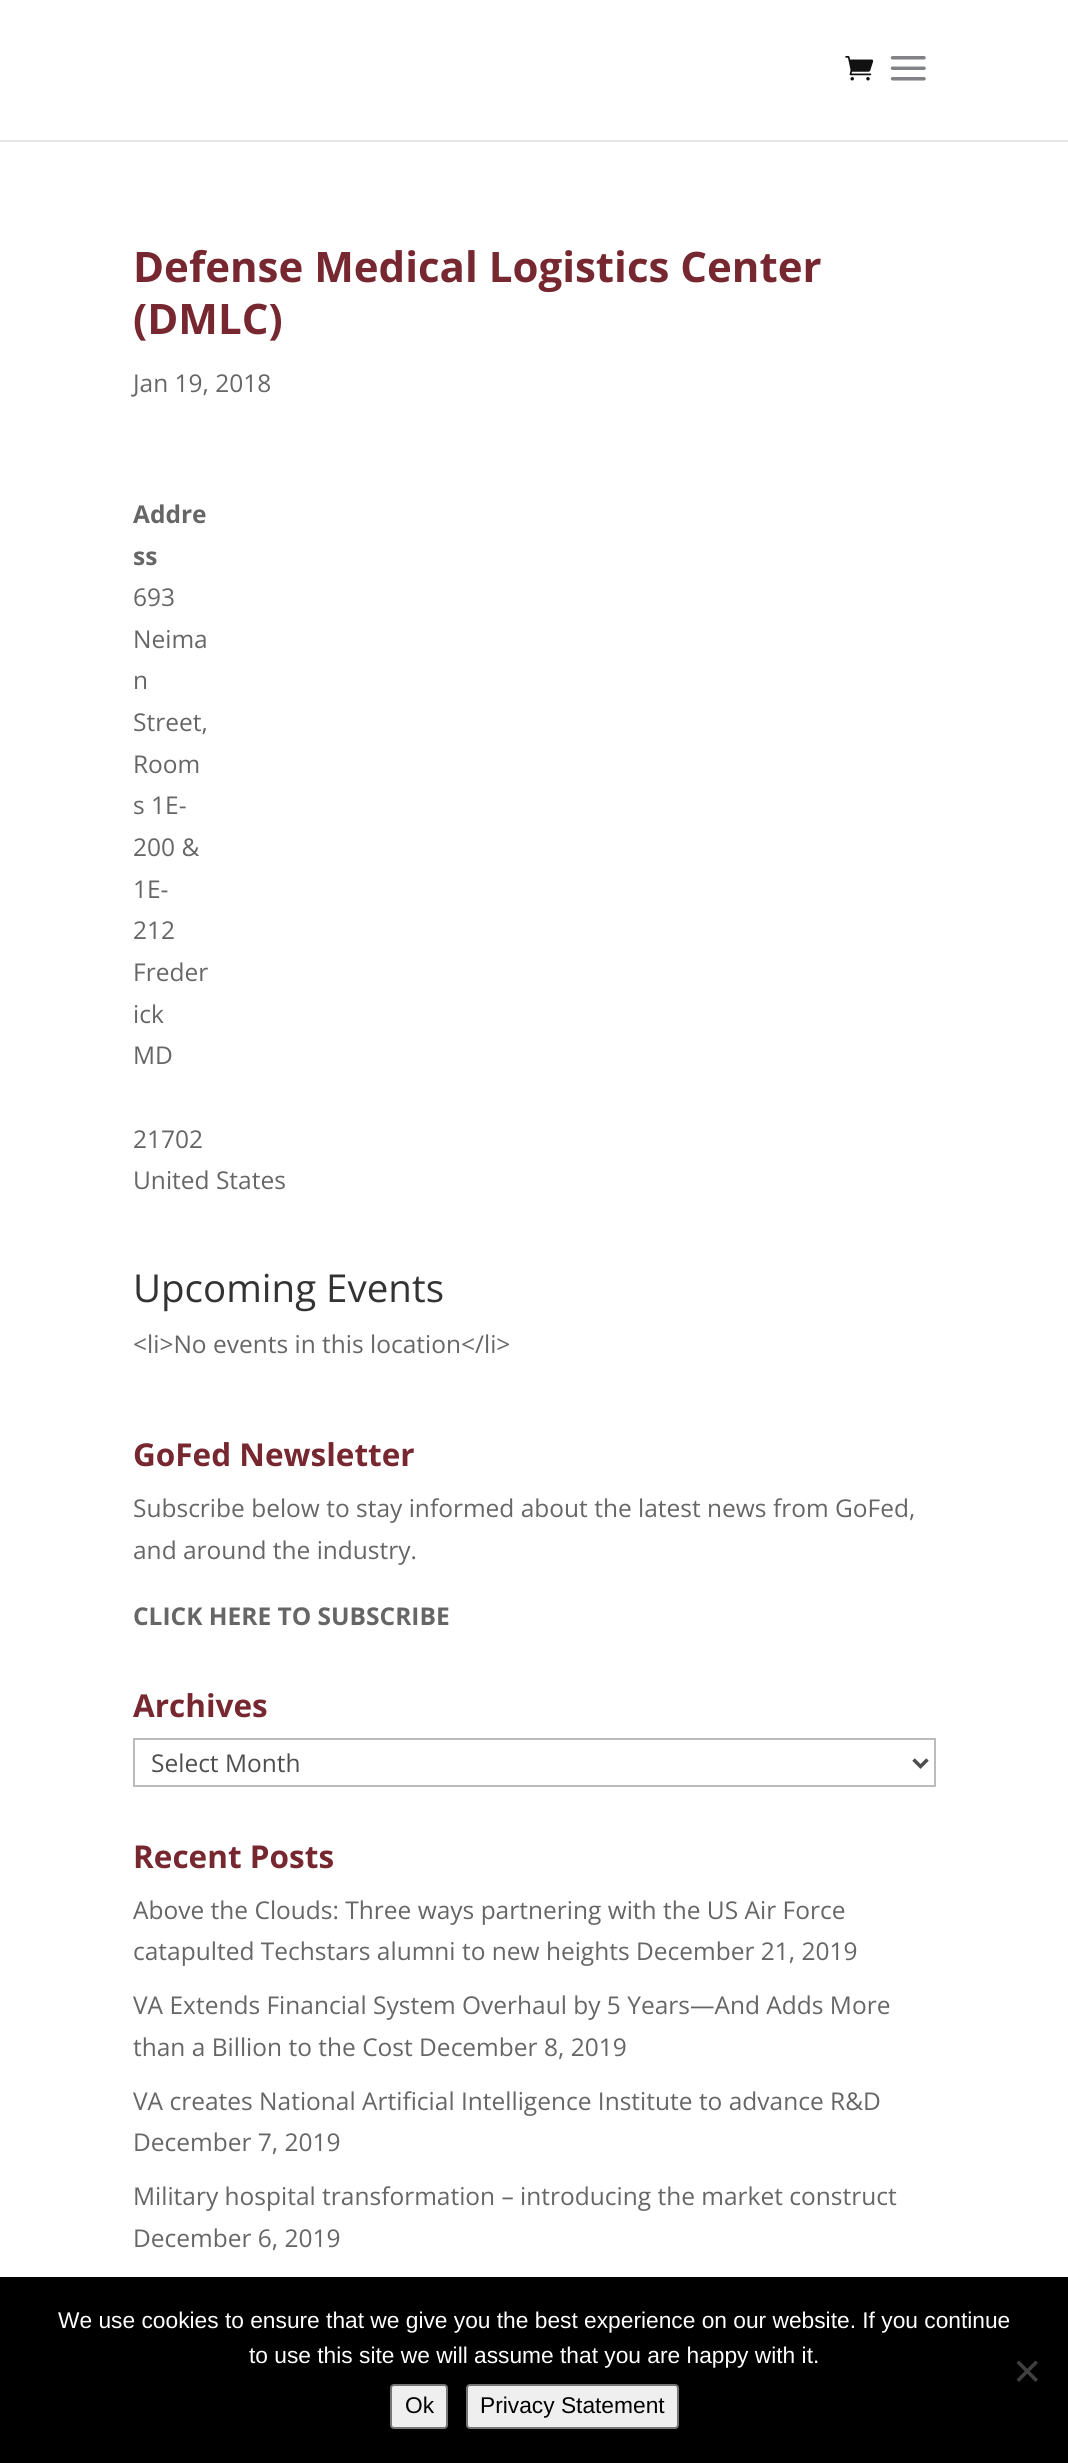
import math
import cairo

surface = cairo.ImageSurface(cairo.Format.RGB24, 1068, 2463)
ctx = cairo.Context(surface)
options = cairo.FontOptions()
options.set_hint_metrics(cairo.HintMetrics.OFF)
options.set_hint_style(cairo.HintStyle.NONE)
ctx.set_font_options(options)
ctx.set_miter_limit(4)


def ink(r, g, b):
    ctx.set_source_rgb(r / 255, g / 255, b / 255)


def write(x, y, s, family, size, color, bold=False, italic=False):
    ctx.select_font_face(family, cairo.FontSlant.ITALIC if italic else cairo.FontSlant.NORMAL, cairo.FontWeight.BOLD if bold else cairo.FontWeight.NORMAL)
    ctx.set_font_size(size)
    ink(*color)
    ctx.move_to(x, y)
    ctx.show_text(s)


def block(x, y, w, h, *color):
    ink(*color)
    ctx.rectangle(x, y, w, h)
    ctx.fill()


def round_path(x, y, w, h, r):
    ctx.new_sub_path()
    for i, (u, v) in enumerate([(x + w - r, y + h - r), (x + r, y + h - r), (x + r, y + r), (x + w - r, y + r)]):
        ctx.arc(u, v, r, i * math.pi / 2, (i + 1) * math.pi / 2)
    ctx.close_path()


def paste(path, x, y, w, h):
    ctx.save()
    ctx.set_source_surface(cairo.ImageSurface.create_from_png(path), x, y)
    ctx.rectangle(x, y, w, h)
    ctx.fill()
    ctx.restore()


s1 = dict(family="Open Sans", size=42, color=(118, 39, 47), bold=True)
s2 = dict(family="Open Sans", size=24.5, color=(102, 102, 102))
s3 = dict(family="Open Sans", size=24.5, color=(102, 102, 102), bold=True)
s4 = dict(family="Open Sans", size=38.5, color=(51, 51, 51))
s5 = dict(family="Open Sans", size=31.5, color=(118, 39, 47), bold=True)
s6 = dict(family="Open Sans", size=24.5, color=(78, 78, 78))
s7 = dict(family="Liberation Sans", size=22.75, color=(255, 255, 255))
s8 = dict(family="Liberation Sans", size=22.75, color=(0, 0, 0))

ink(255, 255, 255)
ctx.paint()
block(0, 140, 1068, 2, 230, 230, 230)
paste("pic1.png", 845, 56, 29, 25)
paste("pic2.png", 890, 56, 36, 25)
write(133, 282, "Defense Medical Logistics Center", **s1)
write(133, 334, "(DMLC)", **s1)
write(133, 392, "Jan 19, 2018", **s2)
write(133, 523, "Addre", **s3)
write(133, 565, "ss", **s3)
write(133, 606, "693", **s2)
write(133, 648, "Neima", **s2)
write(133, 689, "n", **s2)
write(133, 731, "Street,", **s2)
write(133, 773, "Room", **s2)
write(133, 814, "s 1E-", **s2)
write(133, 856, "200 &", **s2)
write(133, 898, "1E-", **s2)
write(133, 939, "212", **s2)
write(133, 981, "Freder", **s2)
write(133, 1023, "ick", **s2)
write(133, 1064, "MD", **s2)
write(133, 1148, "21702", **s2)
write(133, 1189, "United States", **s2)
write(133, 1302, "Upcoming Events", **s4)
write(133, 1353, "<li>No events in this location</li>", **s2)
write(133, 1466, "GoFed Newsletter", **s5)
write(133, 1517, "Subscribe below to stay informed about the latest news from GoFed,", **s2)
write(133, 1559, "and around the industry.", **s2)
write(133, 1625, "CLICK HERE TO SUBSCRIBE", **s3)
write(133, 1717, "Archives", **s5)
ctx.rectangle(134, 1739, 801, 47)
ink(187, 187, 187)
ctx.stroke()
ctx.new_path()
ctx.move_to(913.5, 1759.5)
ctx.line_to(920.5, 1766.5)
ctx.line_to(927.5, 1759.5)
ink(78, 78, 78)
ctx.set_line_width(3.5)
ctx.stroke()
write(151, 1772, "Select Month", **s6)
write(133, 1868, "Recent Posts", **s5)
write(133, 1919, "Above the Clouds: Three ways partnering with the US Air Force", **s2)
write(133, 1960, "catapulted Techstars alumni to new heights December 21, 2019", **s2)
write(133, 2014, "VA Extends Financial System Overhaul by 5 Years—And Adds More", **s2)
write(133, 2056, "than a Billion to the Cost December 8, 2019", **s2)
write(133, 2110, "VA creates National Artificial Intelligence Institute to advance R&D", **s2)
write(133, 2151, "December 7, 2019", **s2)
write(133, 2205, "Military hospital transformation – introducing the market construct", **s2)
write(133, 2247, "December 6, 2019", **s2)
block(0, 2277, 1068, 186, 0, 0, 0)
write(58, 2328, "We use cookies to ensure that we give you the best experience on our website. If you continue", **s7)
write(249, 2363, "to use this site we will assume that you are happy with it.", **s7)
ink(64, 64, 64)
ctx.new_path()
ctx.move_to(1035.5, 2360.5)
ctx.line_to(1038, 2363)
ctx.line_to(1019, 2382)
ctx.line_to(1016.5, 2379.5)
ctx.close_path()
ctx.fill()
ctx.new_path()
ctx.move_to(1016.5, 2363)
ctx.line_to(1019, 2360.5)
ctx.line_to(1038, 2379.5)
ctx.line_to(1035.5, 2382)
ctx.close_path()
ctx.fill()
ink(239, 239, 239)
round_path(391, 2385, 56, 43, 3)
ctx.fill_preserve()
ink(118, 118, 118)
ctx.set_line_width(2)
ctx.stroke()
write(405, 2413, "Ok", **s8)
ink(239, 239, 239)
round_path(467, 2385, 211, 43, 3)
ctx.fill_preserve()
ink(118, 118, 118)
ctx.stroke()
write(480, 2413, "Privacy Statement", **s8)
surface.write_to_png("screenshot.png")
